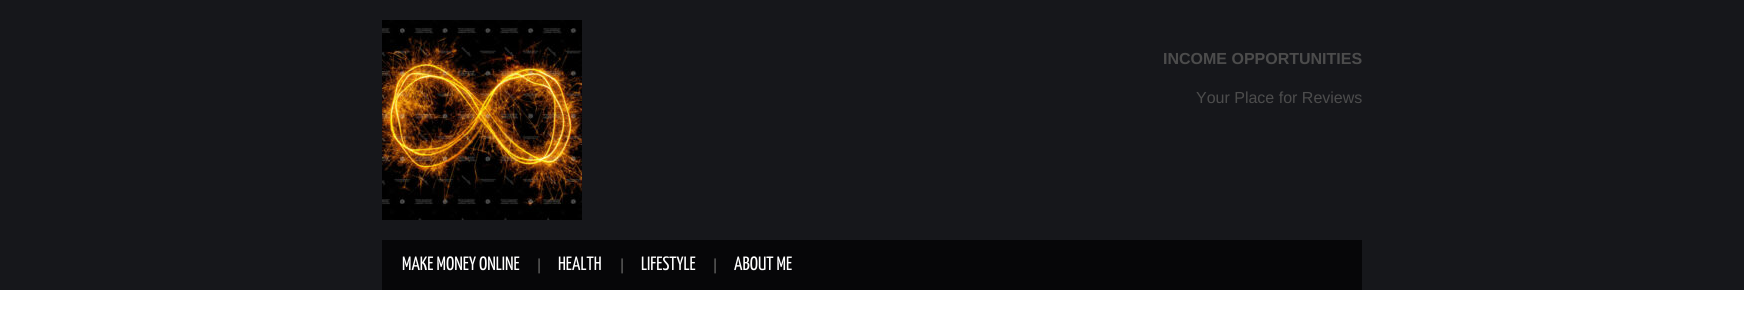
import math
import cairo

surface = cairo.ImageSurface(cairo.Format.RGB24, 1744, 324)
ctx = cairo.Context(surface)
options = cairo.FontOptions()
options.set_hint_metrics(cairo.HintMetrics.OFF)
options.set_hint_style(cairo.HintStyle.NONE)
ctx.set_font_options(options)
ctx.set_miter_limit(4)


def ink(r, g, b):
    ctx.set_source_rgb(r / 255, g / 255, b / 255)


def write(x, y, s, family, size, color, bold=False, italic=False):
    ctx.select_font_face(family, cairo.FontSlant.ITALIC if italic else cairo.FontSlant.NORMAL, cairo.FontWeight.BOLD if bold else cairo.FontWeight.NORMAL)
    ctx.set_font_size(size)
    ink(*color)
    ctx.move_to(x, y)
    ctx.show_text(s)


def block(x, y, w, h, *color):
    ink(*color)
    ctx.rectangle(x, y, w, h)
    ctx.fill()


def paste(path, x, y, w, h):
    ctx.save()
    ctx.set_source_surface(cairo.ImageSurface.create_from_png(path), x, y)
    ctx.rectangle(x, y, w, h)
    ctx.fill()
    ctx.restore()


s1 = dict(family="Liberation Sans", size=16, color=(76, 76, 76), bold=True)
s2 = dict(family="Liberation Sans", size=16, color=(76, 76, 76))
s3 = dict(family="Yanone Kaffeesatz", size=19.25, color=(255, 255, 255))
s4 = dict(family="Liberation Sans", size=16, color=(102, 102, 102))

ink(255, 255, 255)
ctx.paint()
block(0, 0, 1744, 290, 22, 23, 27)
paste("pic1.png", 382, 20, 200, 200)
write(1163, 64, "INCOME OPPORTUNITIES", **s1)
write(1196, 103, "Your Place for Reviews", **s2)
block(382, 240, 980, 50, 6, 6, 8)
write(402, 270, "MAKE MONEY ONLINE", **s3)
write(537, 270, "|", **s4)
write(558, 270, "HEALTH", **s3)
write(620, 270, "|", **s4)
write(641, 270, "LIFESTYLE", **s3)
write(713, 270, "|", **s4)
write(734, 270, "ABOUT ME", **s3)
surface.write_to_png("screenshot.png")
